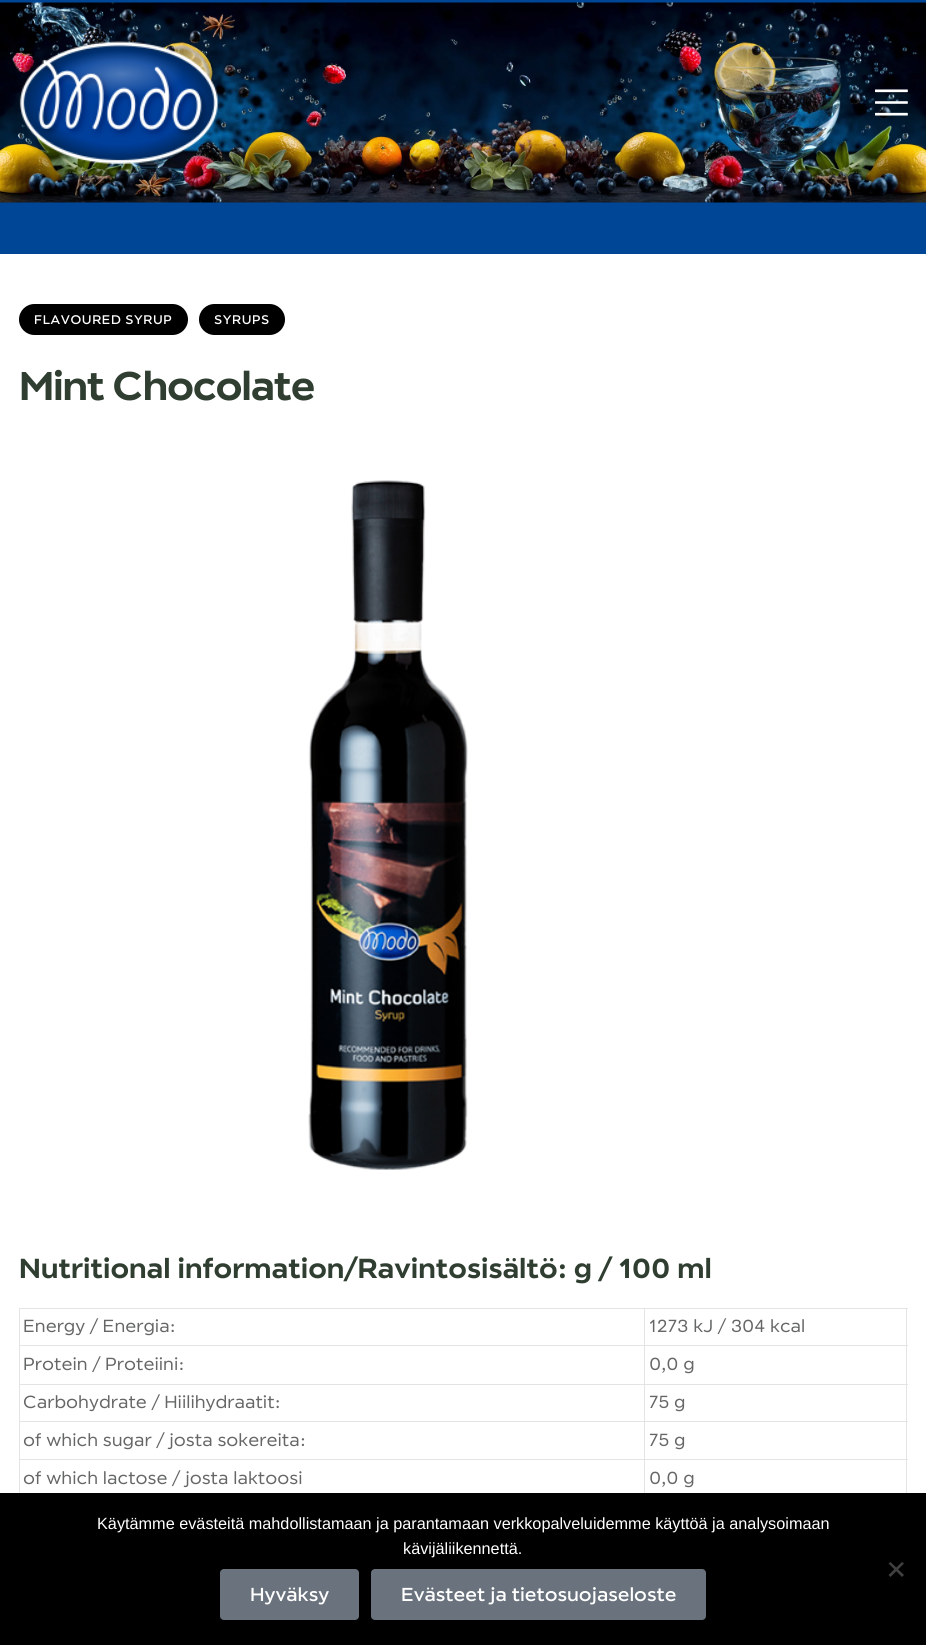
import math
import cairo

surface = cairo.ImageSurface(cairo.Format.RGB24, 926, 1645)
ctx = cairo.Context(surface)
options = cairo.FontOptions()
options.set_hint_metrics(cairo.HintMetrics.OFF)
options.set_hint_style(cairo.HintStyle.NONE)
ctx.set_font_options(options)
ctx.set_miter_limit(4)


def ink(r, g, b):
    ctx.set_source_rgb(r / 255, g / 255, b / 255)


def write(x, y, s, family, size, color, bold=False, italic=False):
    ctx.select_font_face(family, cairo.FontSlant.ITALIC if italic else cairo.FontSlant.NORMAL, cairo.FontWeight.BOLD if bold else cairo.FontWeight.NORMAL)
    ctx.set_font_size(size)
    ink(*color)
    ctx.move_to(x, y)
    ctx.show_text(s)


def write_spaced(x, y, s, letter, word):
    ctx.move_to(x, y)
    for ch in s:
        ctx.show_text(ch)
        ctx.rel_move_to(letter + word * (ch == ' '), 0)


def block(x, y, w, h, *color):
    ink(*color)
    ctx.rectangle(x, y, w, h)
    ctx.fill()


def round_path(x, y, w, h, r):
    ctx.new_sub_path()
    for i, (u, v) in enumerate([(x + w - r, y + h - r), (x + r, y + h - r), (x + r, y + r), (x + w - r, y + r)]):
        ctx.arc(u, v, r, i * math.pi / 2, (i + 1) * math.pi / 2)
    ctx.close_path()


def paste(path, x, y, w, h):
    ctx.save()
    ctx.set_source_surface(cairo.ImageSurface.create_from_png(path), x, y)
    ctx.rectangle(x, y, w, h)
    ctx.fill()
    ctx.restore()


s1 = dict(family="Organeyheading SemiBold", size=27.5, color=(47, 62, 48))
s2 = dict(family="Organeyheading", size=17.5, color=(101, 103, 102))
s3 = dict(family="Liberation Sans", size=16.25, color=(255, 255, 255))
s4 = dict(family="Organeyheading Medium", size=18.75, color=(255, 255, 255))

ink(255, 255, 255)
ctx.paint()
block(0, 0, 926, 3, 0, 70, 150)
block(0, 202, 926, 52, 0, 70, 150)
paste("pic1.png", 0, 2, 926, 201)
paste("pic2.png", 19, 41, 200, 123)
paste("pic3.png", 875, 89, 33, 27)
ink(0, 0, 0)
round_path(19, 304, 169, 31, 15.5)
ctx.fill()
ctx.select_font_face("Organeyheading Medium")
ctx.set_font_size(12.5)
ink(255, 255, 255)
write_spaced(34, 324, "FLAVOURED SYRUP", 0.6, 0)
ink(0, 0, 0)
round_path(199, 304, 86, 31, 15.5)
ctx.fill()
ink(255, 255, 255)
write_spaced(214, 324, "SYRUPS", 0.6, 0)
ctx.select_font_face("Organeyheading SemiBold")
ctx.set_font_size(40)
ink(47, 62, 48)
write_spaced(19, 400, "Mint Chocolate", -1.25, 0)
paste("pic4.png", 308, 480, 160, 690)
write(19, 1278, "Nutritional information/Ravintosisältö: g / 100 ml", **s1)
block(644, 1308, 264, 1, 228, 228, 228)
block(644, 1345, 264, 1, 228, 228, 228)
block(644, 1384, 264, 1, 228, 228, 228)
block(644, 1421, 264, 1, 228, 228, 228)
block(644, 1459, 264, 1, 228, 228, 228)
block(644, 1459, 1, 40, 228, 228, 228)
block(19, 1459, 626, 1, 228, 228, 228)
block(644, 1421, 1, 39, 228, 228, 228)
block(19, 1421, 626, 1, 228, 228, 228)
block(644, 1384, 1, 39, 228, 228, 228)
block(19, 1384, 626, 1, 228, 228, 228)
block(644, 1345, 1, 40, 228, 228, 228)
block(19, 1345, 626, 1, 228, 228, 228)
block(644, 1308, 1, 38, 228, 228, 228)
block(19, 1308, 626, 1, 228, 228, 228)
block(19, 1459, 1, 40, 228, 228, 228)
block(19, 1421, 1, 39, 228, 228, 228)
block(19, 1384, 1, 39, 228, 228, 228)
block(19, 1345, 1, 40, 228, 228, 228)
block(19, 1308, 1, 38, 228, 228, 228)
write(23, 1332, "Energy / Energia:", **s2)
block(906, 1459, 1, 40, 228, 228, 228)
block(906, 1421, 1, 39, 228, 228, 228)
block(906, 1384, 1, 39, 228, 228, 228)
block(906, 1345, 1, 40, 228, 228, 228)
block(906, 1308, 1, 38, 228, 228, 228)
write(649, 1332, "1273 kJ / 304 kcal", **s2)
write(23, 1370, "Protein / Proteiini:", **s2)
write(649, 1370, "0,0 g", **s2)
write(23, 1408, "Carbohydrate / Hiilihydraatit:", **s2)
write(649, 1408, "75 g", **s2)
write(23, 1446, "of which sugar / josta sokereita:", **s2)
write(649, 1446, "75 g", **s2)
write(23, 1484, "of which lactose / josta laktoosi", **s2)
write(649, 1484, "0,0 g", **s2)
block(0, 1493, 926, 152, 0, 0, 0)
write(97, 1529, "Käytämme evästeitä mahdollistamaan ja parantamaan verkkopalveluidemme käyttöä ja analysoimaan", **s3)
write(403, 1554, "kävijäliikennettä.", **s3)
ink(64, 64, 64)
ctx.new_path()
ctx.move_to(902, 1562)
ctx.line_to(904, 1563.5)
ctx.line_to(890.5, 1577)
ctx.line_to(888.5, 1575)
ctx.close_path()
ctx.fill()
ctx.new_path()
ctx.move_to(888.5, 1563.5)
ctx.line_to(890.5, 1562)
ctx.line_to(904, 1575)
ctx.line_to(902, 1577)
ctx.close_path()
ctx.fill()
ink(105, 114, 125)
round_path(220, 1569, 139, 51, 4)
ctx.fill()
write(250, 1601, "Hyväksy", **s4)
ink(105, 114, 125)
round_path(371, 1569, 335, 51, 4)
ctx.fill()
write(401, 1601, "Evästeet ja tietosuojaseloste", **s4)
surface.write_to_png("screenshot.png")
